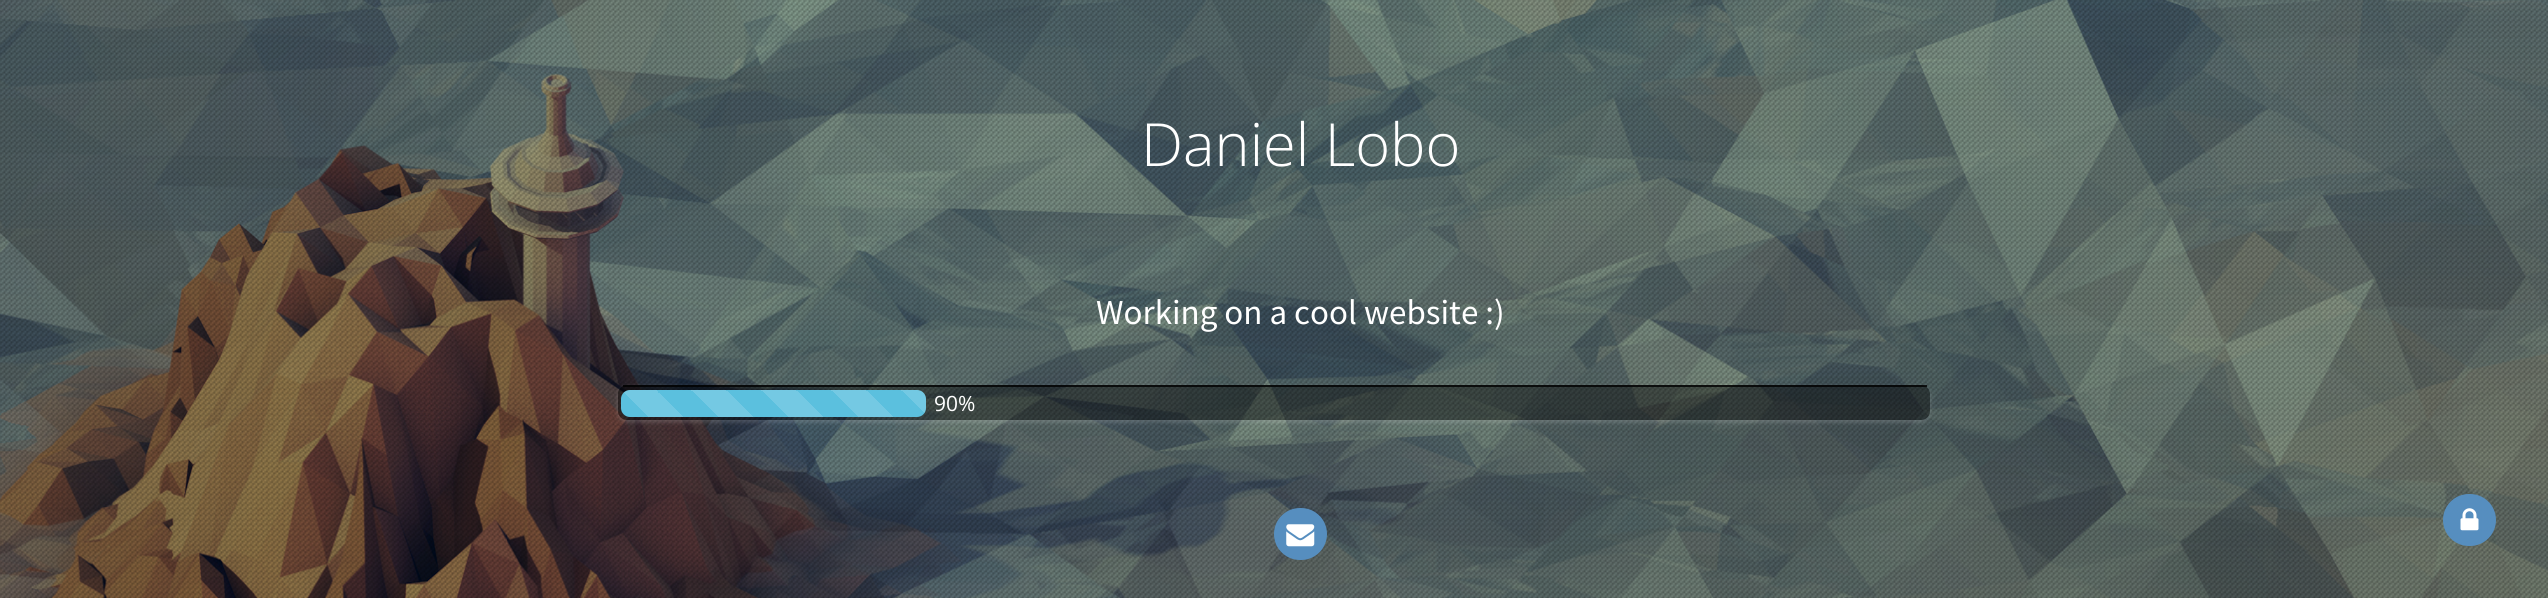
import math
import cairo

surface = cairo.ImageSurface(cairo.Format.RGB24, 2548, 598)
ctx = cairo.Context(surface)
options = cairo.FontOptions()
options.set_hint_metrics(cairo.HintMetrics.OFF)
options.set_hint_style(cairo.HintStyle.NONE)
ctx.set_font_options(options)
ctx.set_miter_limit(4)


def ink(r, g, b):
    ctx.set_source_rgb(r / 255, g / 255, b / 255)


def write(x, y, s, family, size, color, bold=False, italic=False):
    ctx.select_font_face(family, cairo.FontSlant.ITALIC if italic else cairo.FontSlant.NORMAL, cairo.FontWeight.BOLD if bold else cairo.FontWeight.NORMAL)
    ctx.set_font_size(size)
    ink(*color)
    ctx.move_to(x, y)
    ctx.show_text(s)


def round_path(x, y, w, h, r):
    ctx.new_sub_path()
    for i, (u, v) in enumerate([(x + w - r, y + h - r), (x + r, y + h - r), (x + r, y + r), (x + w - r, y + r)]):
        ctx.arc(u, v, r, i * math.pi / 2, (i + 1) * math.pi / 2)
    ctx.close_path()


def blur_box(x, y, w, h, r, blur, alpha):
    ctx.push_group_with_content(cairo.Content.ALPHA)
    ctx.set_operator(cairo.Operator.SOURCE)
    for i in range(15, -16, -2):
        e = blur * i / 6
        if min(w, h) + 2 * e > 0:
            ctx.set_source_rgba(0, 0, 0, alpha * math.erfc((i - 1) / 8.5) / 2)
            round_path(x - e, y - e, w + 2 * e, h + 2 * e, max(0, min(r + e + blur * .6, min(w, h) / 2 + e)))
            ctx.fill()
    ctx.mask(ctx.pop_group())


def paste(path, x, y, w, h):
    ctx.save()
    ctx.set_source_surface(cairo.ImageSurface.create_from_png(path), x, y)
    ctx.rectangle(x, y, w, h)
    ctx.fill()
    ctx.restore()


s1 = dict(family="Open Sans Light", size=59.5, color=(255, 255, 255))
s2 = dict(family="Source Sans Pro", size=35, color=(255, 255, 255))
s3 = dict(family="Open Sans", size=21, color=(255, 255, 255))

ink(255, 255, 255)
ctx.paint()
paste("pic1.png", 0, 0, 2548, 598)
paste("pic2.png", 0, 0, 2548, 598)
write(1141, 166, "Daniel Lobo", **s1)
write(1096, 324, "Working on a cool website :)", **s2)
ctx.save()
ctx.set_fill_rule(cairo.FillRule.EVEN_ODD)
ctx.new_path()
ctx.move_to(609, 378)
ctx.line_to(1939, 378)
ctx.line_to(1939, 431)
ctx.line_to(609, 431)
ctx.close_path()
ctx.move_to(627, 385)
ctx.line_to(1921, 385)
ctx.curve_to(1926, 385, 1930, 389, 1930, 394)
ctx.line_to(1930, 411)
ctx.curve_to(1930, 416, 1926, 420, 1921, 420)
ctx.line_to(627, 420)
ctx.curve_to(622, 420, 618, 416, 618, 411)
ctx.line_to(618, 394)
ctx.curve_to(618, 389, 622, 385, 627, 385)
ctx.close_path()
ctx.clip()
ink(255, 255, 255)
blur_box(618, 387, 1312, 35, 9, 2.5, 0.2)
ctx.restore()
ctx.set_source_rgba(0, 0, 0, 0.4)
round_path(618, 385, 1312, 35, 9)
ctx.fill()
ctx.set_source_rgba(0, 0, 0, 0.8)
ctx.rectangle(623, 385, 1304, 2)
ctx.fill()
ink(91, 192, 222)
round_path(621, 390, 305, 27, 9)
ctx.fill()
gradient = cairo.LinearGradient(621, 460, 691, 390)
gradient.add_color_stop_rgba(0.25, 1, 1, 1, 0.15)
gradient.add_color_stop_rgba(0.25, 1, 1, 1, 0)
gradient.add_color_stop_rgba(0.5, 1, 1, 1, 0)
gradient.add_color_stop_rgba(0.5, 1, 1, 1, 0.15)
gradient.add_color_stop_rgba(0.75, 1, 1, 1, 0.15)
gradient.add_color_stop_rgba(0.75, 1, 1, 1, 0)
gradient.add_color_stop_rgba(1, 0, 0, 0, 0)
ctx.set_source(gradient)
ctx.new_path()
ctx.move_to(630, 390)
ctx.line_to(691, 390)
ctx.line_to(691, 417)
ctx.line_to(630, 417)
ctx.curve_to(625, 417, 621, 413, 621, 408)
ctx.line_to(621, 399)
ctx.curve_to(621, 394, 625, 390, 630, 390)
ctx.close_path()
ctx.fill()
gradient = cairo.LinearGradient(691, 460, 761, 390)
gradient.add_color_stop_rgba(0.25, 0.455, 0.788, 0.89, 1)
gradient.add_color_stop_rgba(0.25, 0.357, 0.753, 0.871, 1)
gradient.add_color_stop_rgba(0.5, 0.357, 0.753, 0.871, 1)
gradient.add_color_stop_rgba(0.5, 0.455, 0.788, 0.89, 1)
gradient.add_color_stop_rgba(0.75, 0.455, 0.788, 0.89, 1)
gradient.add_color_stop_rgba(0.75, 0.357, 0.753, 0.871, 1)
gradient.add_color_stop_rgba(1, 0.357, 0.753, 0.871, 1)
ctx.set_source(gradient)
ctx.rectangle(691, 390, 62, 27)
ctx.fill()
gradient = cairo.LinearGradient(761, 460, 831, 390)
gradient.add_color_stop_rgba(0.25, 0.455, 0.788, 0.89, 1)
gradient.add_color_stop_rgba(0.25, 0.357, 0.753, 0.871, 1)
gradient.add_color_stop_rgba(0.5, 0.357, 0.753, 0.871, 1)
gradient.add_color_stop_rgba(0.5, 0.455, 0.788, 0.89, 1)
gradient.add_color_stop_rgba(0.75, 0.455, 0.788, 0.89, 1)
gradient.add_color_stop_rgba(0.75, 0.357, 0.753, 0.871, 1)
gradient.add_color_stop_rgba(1, 0.357, 0.753, 0.871, 1)
ctx.set_source(gradient)
ctx.rectangle(761, 390, 62, 27)
ctx.fill()
gradient = cairo.LinearGradient(831, 460, 901, 390)
gradient.add_color_stop_rgba(0.25, 0.455, 0.788, 0.89, 1)
gradient.add_color_stop_rgba(0.25, 0.357, 0.753, 0.871, 1)
gradient.add_color_stop_rgba(0.5, 0.357, 0.753, 0.871, 1)
gradient.add_color_stop_rgba(0.5, 0.455, 0.788, 0.89, 1)
gradient.add_color_stop_rgba(0.75, 0.455, 0.788, 0.89, 1)
gradient.add_color_stop_rgba(0.75, 0.357, 0.753, 0.871, 1)
gradient.add_color_stop_rgba(1, 0.357, 0.753, 0.871, 1)
ctx.set_source(gradient)
ctx.rectangle(831, 390, 62, 27)
ctx.fill()
gradient = cairo.LinearGradient(901, 460, 971, 390)
gradient.add_color_stop_rgba(0.25, 1, 1, 1, 0.15)
gradient.add_color_stop_rgba(0.25, 1, 1, 1, 0)
gradient.add_color_stop_rgba(0.5, 1, 1, 1, 0)
gradient.add_color_stop_rgba(0.5, 1, 1, 1, 0.15)
gradient.add_color_stop_rgba(0.75, 1, 1, 1, 0.15)
gradient.add_color_stop_rgba(0.75, 1, 1, 1, 0)
gradient.add_color_stop_rgba(1, 0, 0, 0, 0)
ctx.set_source(gradient)
ctx.new_path()
ctx.move_to(901, 390)
ctx.line_to(917, 390)
ctx.curve_to(922, 390, 926, 394, 926, 399)
ctx.line_to(926, 408)
ctx.curve_to(926, 413, 922, 417, 917, 417)
ctx.line_to(901, 417)
ctx.close_path()
ctx.fill()
write(934, 411, "90%", **s3)
ink(86, 142, 191)
round_path(1274, 508, 53, 52, 26)
ctx.fill()
paste("pic3.png", 1286, 524, 29, 23)
round_path(2443, 494, 53, 52, 26)
ctx.fill()
paste("pic4.png", 2460, 508, 19, 23)
surface.write_to_png("screenshot.png")
